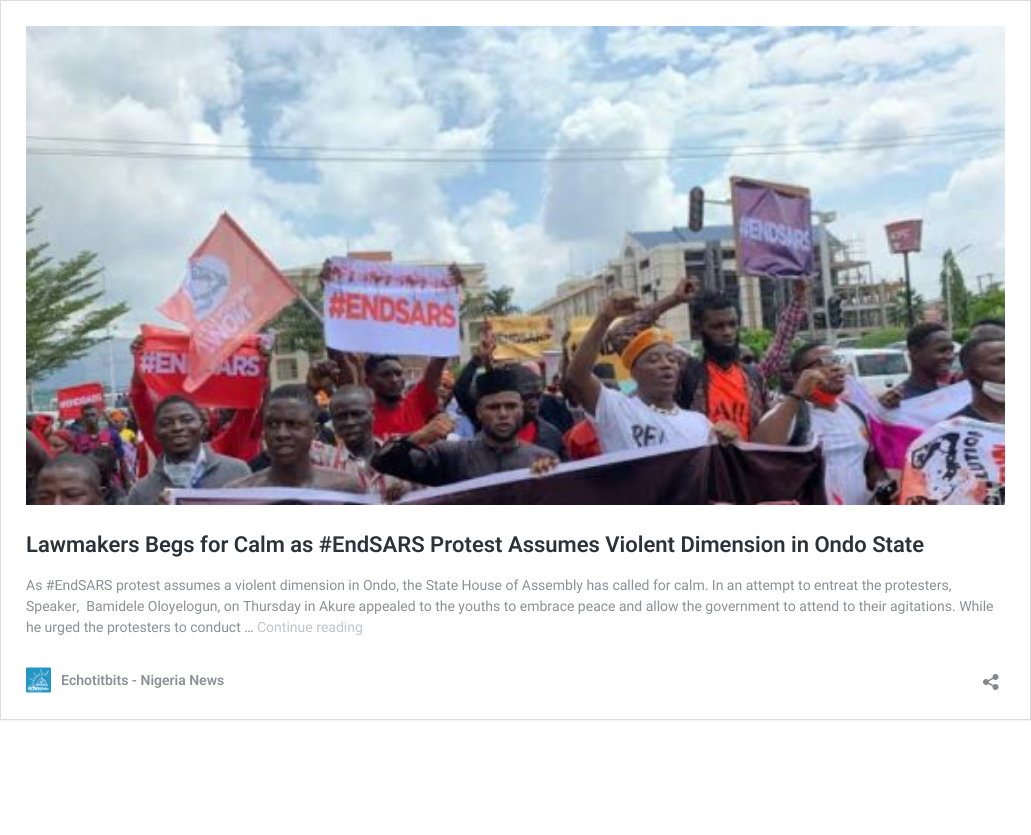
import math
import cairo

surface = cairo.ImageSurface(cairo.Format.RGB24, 1031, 835)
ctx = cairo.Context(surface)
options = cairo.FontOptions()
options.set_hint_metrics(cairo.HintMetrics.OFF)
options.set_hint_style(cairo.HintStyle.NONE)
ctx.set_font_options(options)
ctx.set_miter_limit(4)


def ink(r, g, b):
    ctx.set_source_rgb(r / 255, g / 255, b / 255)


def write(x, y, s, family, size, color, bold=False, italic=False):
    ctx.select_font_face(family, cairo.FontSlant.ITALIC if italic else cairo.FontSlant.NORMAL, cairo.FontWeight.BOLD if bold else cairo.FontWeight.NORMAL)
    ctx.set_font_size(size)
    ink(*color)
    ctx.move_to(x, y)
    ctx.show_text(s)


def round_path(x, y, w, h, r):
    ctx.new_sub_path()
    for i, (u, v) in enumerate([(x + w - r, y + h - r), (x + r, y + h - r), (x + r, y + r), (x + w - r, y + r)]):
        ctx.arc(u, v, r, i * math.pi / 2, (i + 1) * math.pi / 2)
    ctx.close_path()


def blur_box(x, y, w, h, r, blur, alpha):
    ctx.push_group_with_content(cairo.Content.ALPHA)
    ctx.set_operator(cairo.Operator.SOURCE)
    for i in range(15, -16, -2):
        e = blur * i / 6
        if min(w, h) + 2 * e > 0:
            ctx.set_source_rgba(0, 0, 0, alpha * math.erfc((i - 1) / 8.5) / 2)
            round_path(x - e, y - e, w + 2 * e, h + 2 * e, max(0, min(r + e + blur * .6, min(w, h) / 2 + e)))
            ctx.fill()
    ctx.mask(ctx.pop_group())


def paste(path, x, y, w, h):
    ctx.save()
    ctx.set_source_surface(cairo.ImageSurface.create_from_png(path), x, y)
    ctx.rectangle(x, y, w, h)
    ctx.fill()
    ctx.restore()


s1 = dict(family="Roboto SemiBold", size=22, color=(44, 51, 56))
s2 = dict(family="Roboto", size=14, color=(140, 143, 148))
s3 = dict(family="Roboto", size=14, color=(195, 196, 199))
s4 = dict(family="Roboto SemiBold", size=14, color=(140, 143, 148))

ink(255, 255, 255)
ctx.paint()
ctx.save()
ctx.rectangle(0, 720, 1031, 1)
ctx.clip()
ink(0, 0, 0)
blur_box(0, 1, 1031, 720, 0, 0.5, 0.05)
ctx.restore()
ctx.rectangle(0.5, 0.5, 1030, 719)
ink(220, 220, 222)
ctx.set_line_width(1)
ctx.stroke()
paste("pic1.png", 26, 26, 979, 479)
write(26, 552, "Lawmakers Begs for Calm as #EndSARS Protest Assumes Violent Dimension in Ondo State", **s1)
write(26, 590, "As #EndSARS protest assumes a violent dimension in Ondo, the State House of Assembly has called for calm. In an attempt to entreat the protesters,", **s2)
write(26, 611, "Speaker,  Bamidele Oloyelogun, on Thursday in Akure appealed to the youths to embrace peace and allow the government to attend to their agitations. While", **s2)
write(26, 632, "he urged the protesters to conduct …", **s2)
write(257, 632, "Continue reading", **s3)
paste("pic2.png", 26, 667, 25, 26)
write(61, 685, "Echotitbits - Nigeria News", **s4)
paste("pic3.png", 983, 674, 16, 16)
surface.write_to_png("screenshot.png")
